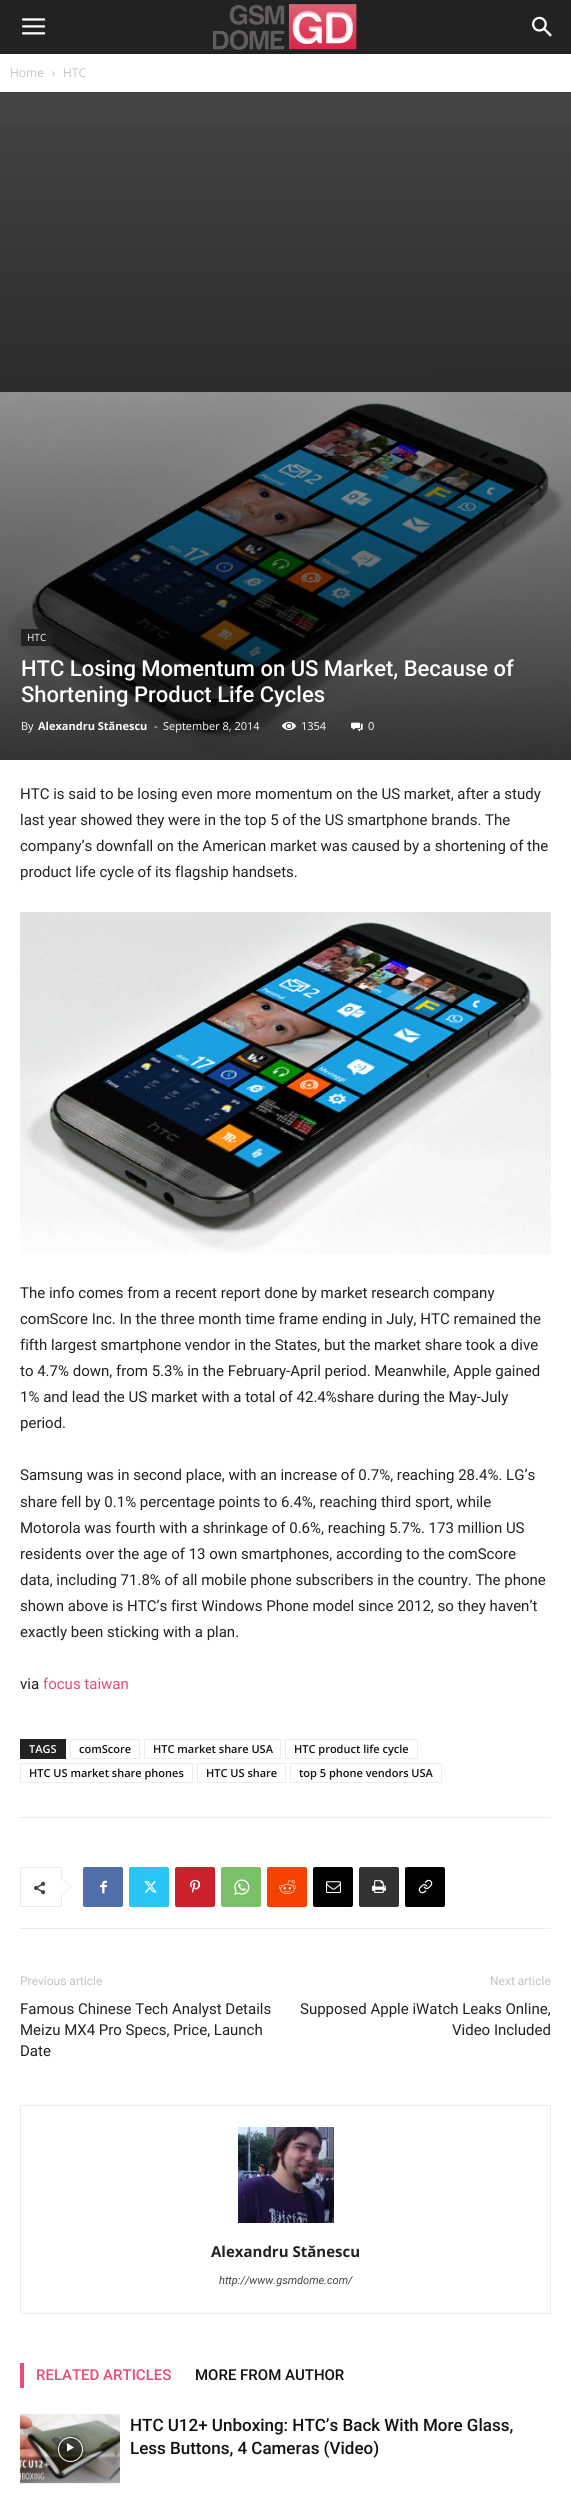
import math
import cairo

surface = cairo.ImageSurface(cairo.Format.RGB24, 571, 2508)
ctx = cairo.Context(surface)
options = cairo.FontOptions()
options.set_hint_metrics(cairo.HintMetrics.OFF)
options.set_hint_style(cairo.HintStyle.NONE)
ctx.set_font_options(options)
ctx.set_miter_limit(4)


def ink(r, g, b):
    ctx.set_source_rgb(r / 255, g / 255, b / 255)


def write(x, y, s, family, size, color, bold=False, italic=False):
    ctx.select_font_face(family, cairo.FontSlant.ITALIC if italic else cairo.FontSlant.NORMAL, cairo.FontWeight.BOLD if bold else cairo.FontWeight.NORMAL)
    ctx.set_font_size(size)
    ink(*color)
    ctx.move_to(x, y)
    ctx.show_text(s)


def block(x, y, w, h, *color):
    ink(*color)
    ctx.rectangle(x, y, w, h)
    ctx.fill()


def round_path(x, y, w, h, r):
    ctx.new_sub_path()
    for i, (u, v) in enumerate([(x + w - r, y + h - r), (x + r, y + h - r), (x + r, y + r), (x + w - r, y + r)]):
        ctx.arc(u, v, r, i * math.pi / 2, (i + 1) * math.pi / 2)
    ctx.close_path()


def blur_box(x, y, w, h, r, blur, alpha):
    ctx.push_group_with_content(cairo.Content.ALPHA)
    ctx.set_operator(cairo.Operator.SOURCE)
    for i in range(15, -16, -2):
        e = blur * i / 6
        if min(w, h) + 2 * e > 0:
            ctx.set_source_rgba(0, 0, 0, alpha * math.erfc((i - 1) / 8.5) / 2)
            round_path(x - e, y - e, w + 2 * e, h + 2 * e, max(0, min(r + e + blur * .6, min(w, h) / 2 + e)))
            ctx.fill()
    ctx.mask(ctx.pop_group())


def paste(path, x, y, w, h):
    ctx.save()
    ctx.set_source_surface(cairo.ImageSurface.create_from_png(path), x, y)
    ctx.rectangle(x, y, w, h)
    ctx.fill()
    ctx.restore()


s1 = dict(family="Open Sans", size=12, color=(195, 195, 195))
s2 = dict(family="Open Sans", size=10, color=(255, 255, 255))
s3 = dict(family="Roboto Medium", size=22, color=(255, 255, 255))
s4 = dict(family="Open Sans", size=11, color=(255, 255, 255))
s5 = dict(family="Open Sans", size=11, color=(255, 255, 255), bold=True)
s6 = dict(family="Roboto", size=15, color=(34, 34, 34))
s7 = dict(family="Roboto", size=15, color=(234, 75, 117))
s8 = dict(family="Open Sans SemiBold", size=11, color=(255, 255, 255))
s9 = dict(family="Open Sans SemiBold", size=11, color=(17, 17, 17))
s10 = dict(family="Roboto", size=12, color=(195, 195, 195))
s11 = dict(family="Open Sans", size=15, color=(34, 34, 34), bold=True)
s12 = dict(family="Roboto", size=11, color=(68, 68, 68), italic=True)
s13 = dict(family="Roboto Medium", size=15, color=(234, 75, 117))
s14 = dict(family="Roboto Medium", size=15, color=(17, 17, 17))
s15 = dict(family="Roboto Medium", size=17, color=(17, 17, 17))

ink(255, 255, 255)
ctx.paint()
block(0, 0, 571, 54, 34, 34, 34)
paste("pic1.png", 22, 18, 24, 17)
paste("pic2.png", 213, 4, 144, 46)
paste("pic3.png", 532, 16, 20, 21)
write(10, 77, "Home", **s1)
paste("pic4.png", 52, 71, 3, 5)
write(63, 77, "HTC", **s1)
block(0, 92, 571, 300, 68, 68, 68)
paste("pic5.png", 0, 392, 571, 368)
gradient = cairo.LinearGradient(285, 92, 286, 760)
gradient.add_color_stop_rgba(0, 0, 0, 0, 0)
gradient.add_color_stop_rgba(1, 0, 0, 0, 0.8)
ctx.set_source(gradient)
ctx.rectangle(0, 123, 571, 637)
ctx.fill()
block(21, 629, 31, 17, 34, 34, 34)
write(27, 641, "HTC", **s2)
write(21, 676, "HTC Losing Momentum on US Market, Because of", **s3)
write(21, 702, "Shortening Product Life Cycles", **s3)
write(21, 730, "By", **s4)
write(38, 730, "Alexandru Stănescu", **s5)
write(154, 730, "-", **s4)
write(163, 730, "September 8, 2014", **s4)
paste("pic6.png", 282, 721, 14, 10)
write(301, 730, "1354", **s4)
paste("pic7.png", 351, 722, 12, 10)
write(368, 730, "0", **s4)
write(20, 799, "HTC is said to be losing even more momentum on the US market, after a study", **s6)
write(20, 825, "last year showed they were in the top 5 of the US smartphone brands. The", **s6)
write(20, 851, "company’s downfall on the American market was caused by a shortening of the", **s6)
write(20, 877, "product life cycle of its flagship handsets.", **s6)
paste("pic8.png", 20, 912, 531, 342)
write(20, 1298, "The info comes from a recent report done by market research company", **s6)
write(20, 1324, "comScore Inc. In the three month time frame ending in July, HTC remained the", **s6)
write(20, 1350, "fifth largest smartphone vendor in the States, but the market share took a dive", **s6)
write(20, 1376, "to 4.7% down, from 5.3% in the February-April period. Meanwhile, Apple gained", **s6)
write(20, 1402, "1% and lead the US market with a total of 42.4%share during the May-July", **s6)
write(20, 1428, "period.", **s6)
write(20, 1480, "Samsung was in second place, with an increase of 0.7%, reaching 28.4%. LG’s", **s6)
write(20, 1507, "share fell by 0.1% percentage points to 6.4%, reaching third sport, while", **s6)
write(20, 1533, "Motorola was fourth with a shrinkage of 0.6%, reaching 5.7%. 173 million US", **s6)
write(20, 1559, "residents over the age of 13 own smartphones, according to the comScore", **s6)
write(20, 1585, "data, including 71.8% of all mobile phone subscribers in the country. The phone", **s6)
write(20, 1611, "shown above is HTC’s first Windows Phone model since 2012, so they haven’t", **s6)
write(20, 1637, "exactly been sticking with a plan.", **s6)
write(20, 1689, "via", **s6)
write(43, 1689, "focus taiwan", **s7)
block(20, 1739, 46, 20, 34, 34, 34)
write(29, 1753, "TAGS", **s8)
ctx.rectangle(70.5, 1739.5, 69, 19)
ink(237, 237, 237)
ctx.set_line_width(1)
ctx.stroke()
write(79, 1753, "comScore", **s9)
ctx.rectangle(144.5, 1739.5, 136, 19)
ink(237, 237, 237)
ctx.stroke()
write(153, 1753, "HTC market share USA", **s9)
ctx.rectangle(285.5, 1739.5, 132, 19)
ink(237, 237, 237)
ctx.stroke()
write(294, 1753, "HTC product life cycle", **s9)
ctx.rectangle(20.5, 1763.5, 172, 19)
ink(237, 237, 237)
ctx.stroke()
write(29, 1777, "HTC US market share phones", **s9)
ctx.rectangle(197.5, 1763.5, 88, 19)
ink(237, 237, 237)
ctx.stroke()
write(206, 1777, "HTC US share", **s9)
ctx.rectangle(290.5, 1763.5, 151, 19)
ink(237, 237, 237)
ctx.stroke()
write(299, 1777, "top 5 phone vendors USA", **s9)
block(20, 1817, 531, 1, 237, 237, 237)
block(20, 1928, 531, 1, 237, 237, 237)
round_path(20.5, 1867.5, 41, 39, 1.5)
ink(233, 233, 233)
ctx.stroke()
ctx.new_path()
ctx.move_to(61, 1896)
ctx.line_to(61, 1878)
ctx.line_to(72, 1887)
ctx.close_path()
ctx.fill()
paste("pic9.png", 34, 1881, 12, 14)
ink(255, 255, 255)
ctx.new_path()
ctx.move_to(61, 1895)
ctx.line_to(61, 1879)
ctx.line_to(71, 1887)
ctx.close_path()
ctx.fill()
ink(81, 110, 171)
round_path(83, 1867, 40, 40, 2)
ctx.fill()
paste("pic10.png", 100, 1880, 7, 14)
ink(41, 197, 246)
round_path(129, 1867, 40, 40, 2)
ctx.fill()
paste("pic11.png", 144, 1881, 13, 12)
ink(202, 33, 42)
round_path(175, 1867, 40, 40, 2)
ctx.fill()
paste("pic12.png", 190, 1879, 11, 14)
ink(123, 191, 106)
round_path(221, 1867, 40, 40, 2)
ctx.fill()
paste("pic13.png", 234, 1879, 16, 16)
ink(245, 66, 0)
round_path(267, 1867, 40, 40, 2)
ctx.fill()
paste("pic14.png", 279, 1880, 17, 14)
ink(0, 0, 0)
round_path(313, 1867, 40, 40, 2)
ctx.fill()
paste("pic15.png", 326, 1881, 15, 12)
ink(51, 51, 51)
round_path(359, 1867, 40, 40, 2)
ctx.fill()
paste("pic16.png", 372, 1880, 14, 13)
ink(0, 0, 0)
round_path(405, 1867, 40, 40, 2)
ctx.fill()
paste("pic17.png", 418, 1879, 15, 15)
write(20, 1985, "Previous article", **s10)
write(20, 2014, "Famous Chinese Tech Analyst Details", **s6)
write(20, 2035, "Meizu MX4 Pro Specs, Price, Launch", **s6)
write(20, 2056, "Date", **s6)
write(490, 1985, "Next article", **s10)
write(300, 2014, "Supposed Apple iWatch Leaks Online,", **s6)
write(452, 2035, "Video Included", **s6)
ctx.rectangle(20.5, 2105.5, 530, 208)
ink(237, 237, 237)
ctx.stroke()
paste("pic18.png", 238, 2127, 96, 96)
write(211, 2257, "Alexandru Stănescu", **s11)
write(219, 2284, "http://www.gsmdome.com/", **s12)
block(20, 2363, 4, 25, 234, 75, 117)
write(36, 2380, "RELATED ARTICLES", **s13)
write(195, 2380, "MORE FROM AUTHOR", **s14)
paste("pic19.png", 20, 2414, 100, 70)
ctx.save()
ctx.set_fill_rule(cairo.FillRule.EVEN_ODD)
ctx.new_path()
ctx.move_to(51, 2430)
ctx.line_to(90, 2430)
ctx.line_to(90, 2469)
ctx.line_to(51, 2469)
ctx.close_path()
ctx.move_to(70.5, 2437)
ctx.curve_to(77.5, 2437, 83, 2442.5, 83, 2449.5)
ctx.curve_to(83, 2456.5, 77.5, 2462, 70.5, 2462)
ctx.curve_to(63.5, 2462, 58, 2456.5, 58, 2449.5)
ctx.curve_to(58, 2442.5, 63.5, 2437, 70.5, 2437)
ctx.close_path()
ctx.clip()
ink(0, 0, 0)
blur_box(58, 2437, 25, 25, 12.5, 2, 0.4)
ctx.restore()
ctx.set_source_rgba(0, 0, 0, 0.48)
ctx.arc(70.5, 2449.5, 12, 0, 2 * math.pi)
ctx.fill_preserve()
ink(255, 255, 255)
ctx.stroke()
ctx.new_path()
ctx.move_to(67, 2443)
ctx.line_to(67, 2451.5)
ctx.line_to(74, 2447.5)
ctx.close_path()
ctx.fill()
write(130, 2431, "HTC U12+ Unboxing: HTC’s Back With More Glass,", **s15)
write(130, 2454, "Less Buttons, 4 Cameras (Video)", **s15)
surface.write_to_png("screenshot.png")
